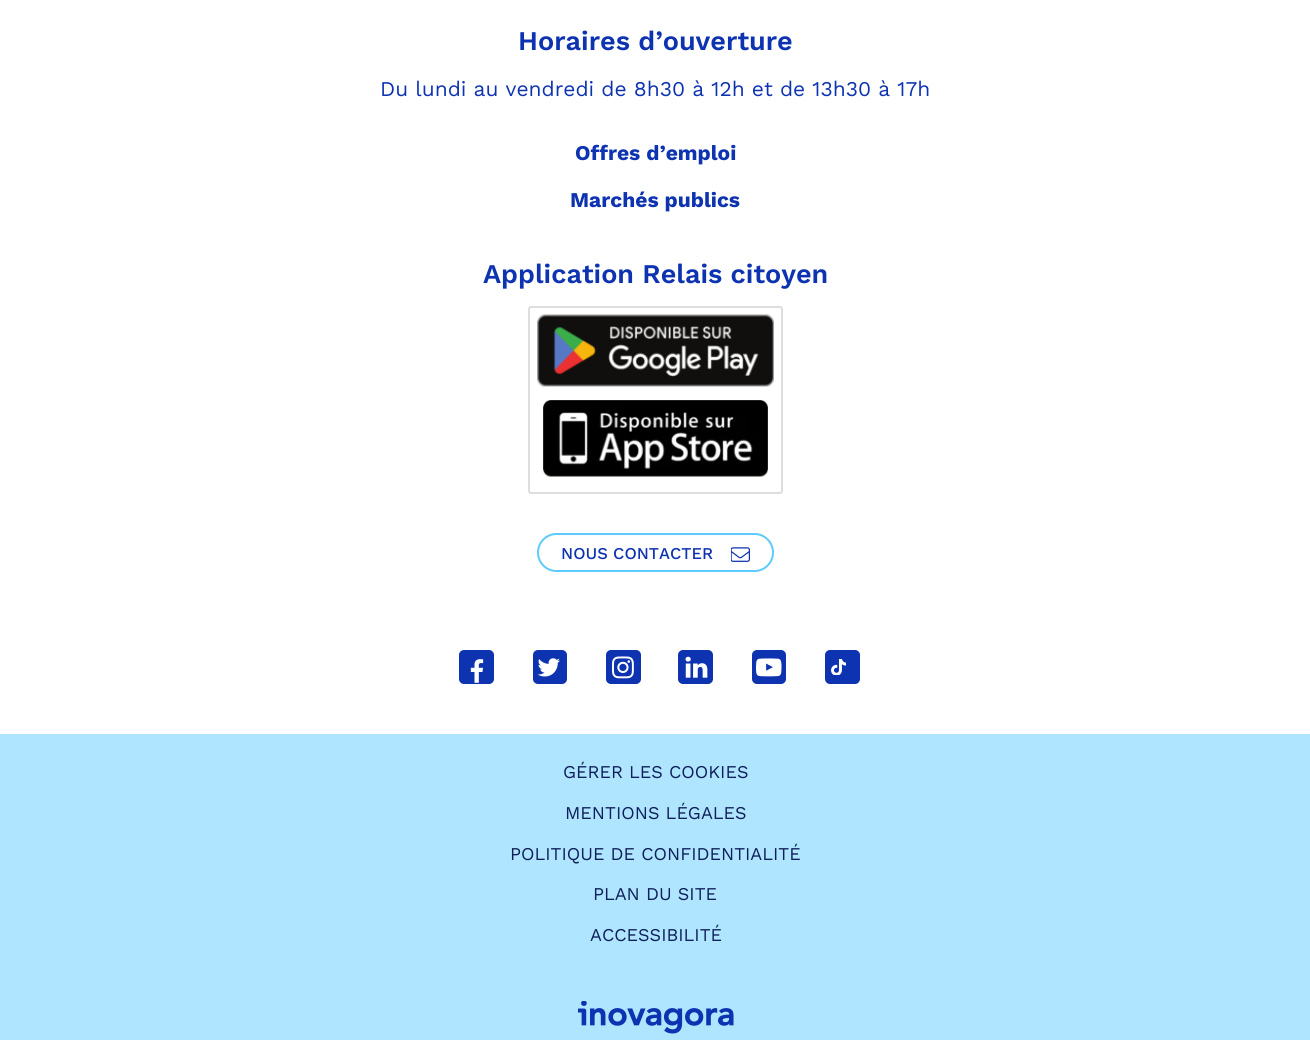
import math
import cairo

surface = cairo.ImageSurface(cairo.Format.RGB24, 1310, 1040)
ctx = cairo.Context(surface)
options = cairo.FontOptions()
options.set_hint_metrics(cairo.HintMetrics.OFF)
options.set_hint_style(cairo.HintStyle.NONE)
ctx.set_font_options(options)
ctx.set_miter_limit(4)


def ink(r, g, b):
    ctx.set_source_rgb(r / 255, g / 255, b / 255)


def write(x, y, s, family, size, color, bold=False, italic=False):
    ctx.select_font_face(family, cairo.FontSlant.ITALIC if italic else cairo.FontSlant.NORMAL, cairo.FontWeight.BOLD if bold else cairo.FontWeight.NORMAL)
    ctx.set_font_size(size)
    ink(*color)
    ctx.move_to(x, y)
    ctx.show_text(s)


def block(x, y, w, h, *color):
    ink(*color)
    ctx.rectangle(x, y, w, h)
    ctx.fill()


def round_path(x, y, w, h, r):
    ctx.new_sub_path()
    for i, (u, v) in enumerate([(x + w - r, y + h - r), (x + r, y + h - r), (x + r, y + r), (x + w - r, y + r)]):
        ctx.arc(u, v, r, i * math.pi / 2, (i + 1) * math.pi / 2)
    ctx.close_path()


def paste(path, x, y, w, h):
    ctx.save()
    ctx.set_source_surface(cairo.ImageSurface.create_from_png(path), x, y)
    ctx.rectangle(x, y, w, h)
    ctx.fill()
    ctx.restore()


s1 = dict(family="Work Sans SemiBold", size=27, color=(14, 51, 177))
s2 = dict(family="Work Sans", size=21, color=(14, 51, 177))
s3 = dict(family="Work Sans", size=21, color=(14, 51, 177), bold=True)
s4 = dict(family="Work Sans Medium", size=16.5, color=(14, 51, 177))
s5 = dict(family="Work Sans", size=18, color=(14, 31, 89))

ink(255, 255, 255)
ctx.paint()
write(518, 50, "Horaires d’ouverture", **s1)
write(380, 96, "Du lundi au vendredi de 8h30 à 12h et de 13h30 à 17h", **s2)
write(575, 160, "Offres d’emploi", **s3)
write(570, 207, "Marchés publics", **s3)
write(483, 283, "Application Relais citoyen", **s1)
round_path(529, 307, 253, 186, 2)
ink(222, 222, 222)
ctx.stroke()
paste("pic1.png", 537, 314, 237, 73)
paste("pic2.png", 543, 400, 225, 77)
round_path(538, 534, 235, 37, 18.5)
ink(94, 202, 254)
ctx.stroke()
write(561, 559, "NOUS CONTACTER", **s4)
paste("pic3.png", 731, 547, 19, 15)
round_path(459, 650, 35, 34, 5)
ctx.fill()
paste("pic4.png", 470, 659, 14, 24)
round_path(533, 650, 34, 34, 5)
ctx.fill()
paste("pic5.png", 537, 658, 23, 19)
round_path(606, 650, 35, 34, 5)
ctx.fill()
paste("pic6.png", 612, 656, 22, 23)
round_path(678, 650, 35, 34, 5)
ctx.fill()
paste("pic7.png", 685, 656, 23, 22)
round_path(752, 650, 34, 34, 5)
ctx.fill()
paste("pic8.png", 756, 658, 26, 19)
round_path(825, 650, 35, 34, 5)
ctx.fill()
paste("pic9.png", 831, 659, 15, 16)
block(0, 734, 1310, 306, 175, 229, 255)
write(563, 778, "GÉRER LES COOKIES", **s5)
write(565, 819, "MENTIONS LÉGALES", **s5)
write(510, 860, "POLITIQUE DE CONFIDENTIALITÉ", **s5)
write(593, 900, "PLAN DU SITE", **s5)
write(590, 941, "ACCESSIBILITÉ", **s5)
paste("pic10.png", 578, 1001, 156, 33)
surface.write_to_png("screenshot.png")
